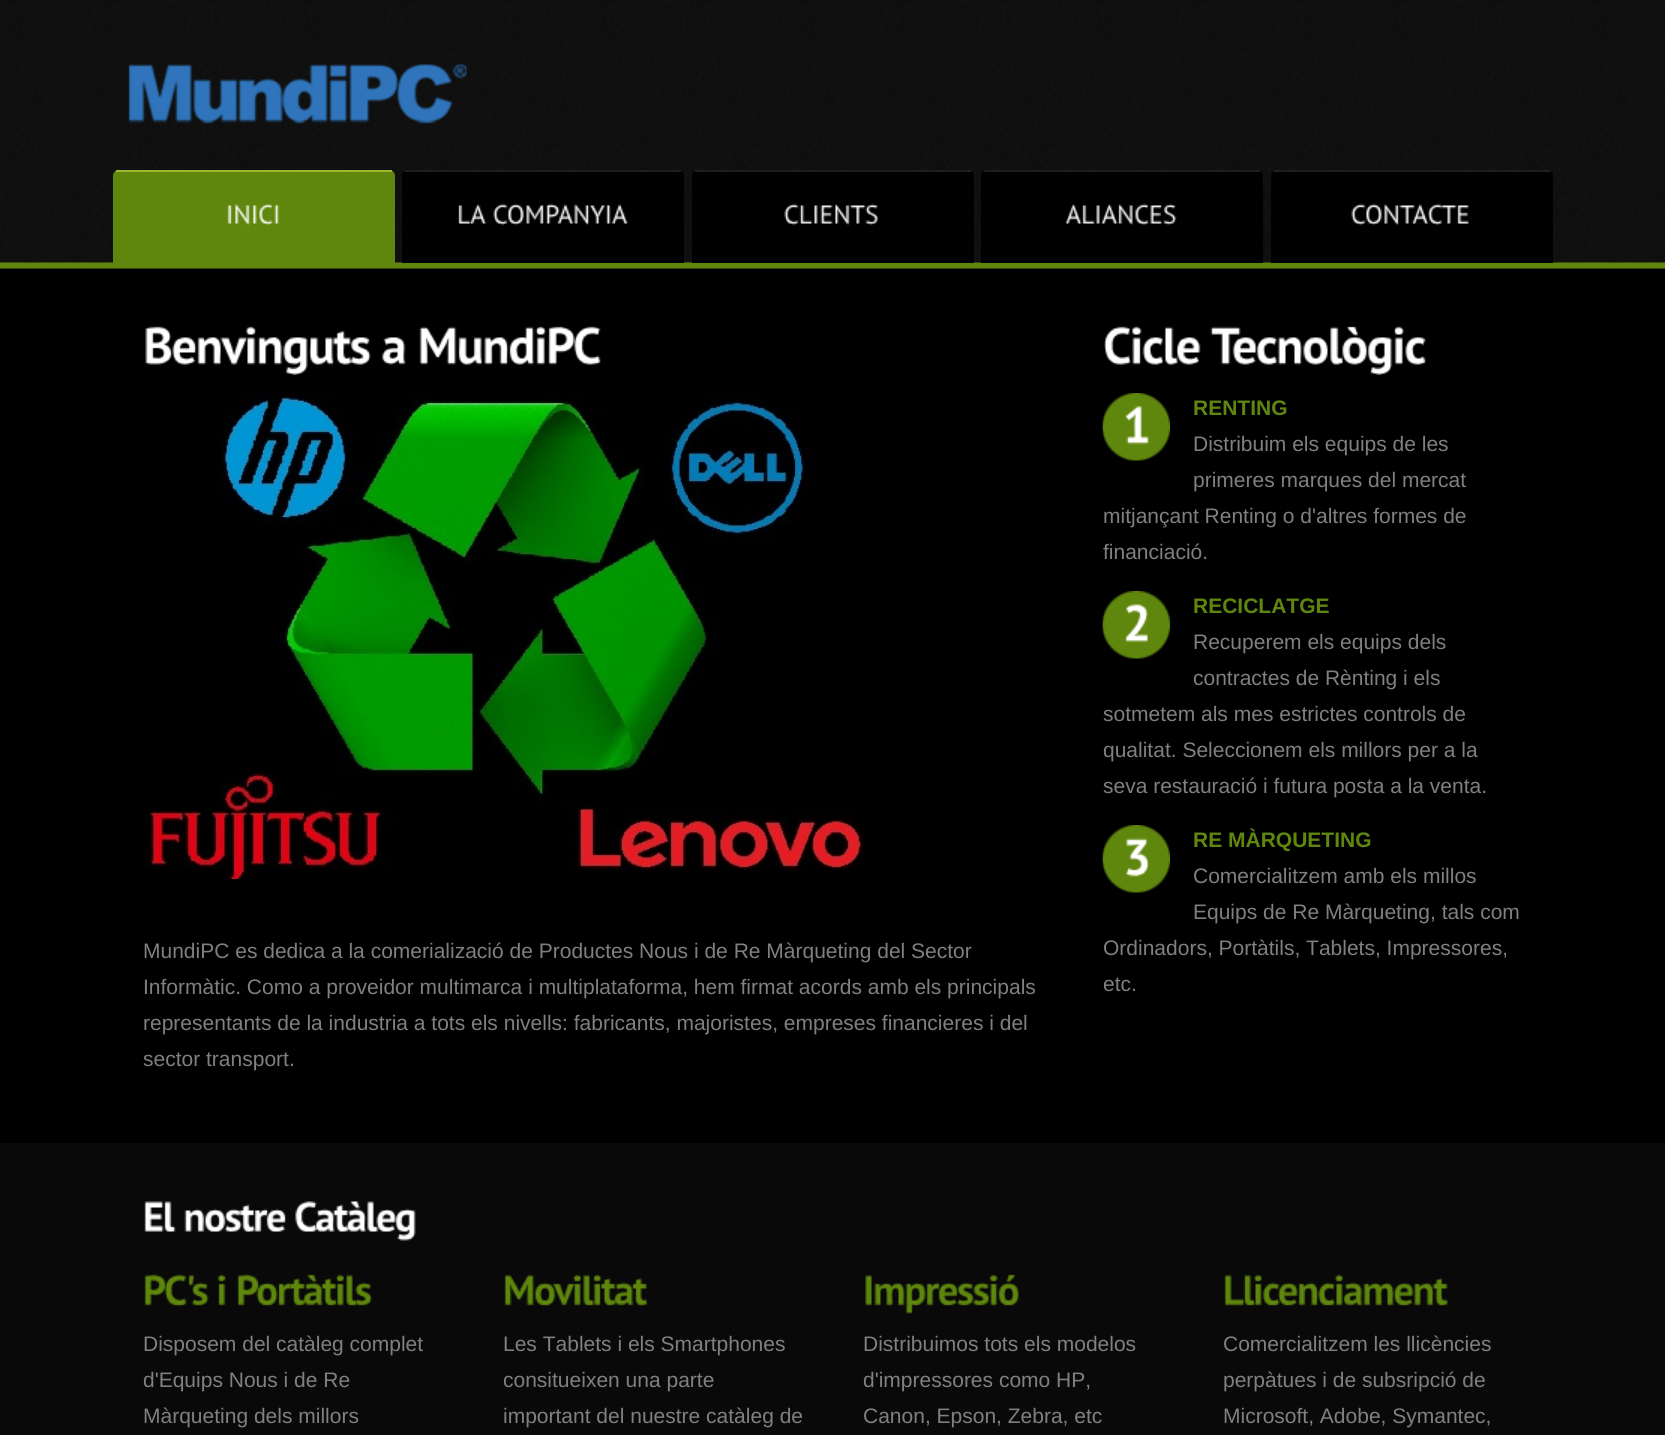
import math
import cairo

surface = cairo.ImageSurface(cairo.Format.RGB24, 1665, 1435)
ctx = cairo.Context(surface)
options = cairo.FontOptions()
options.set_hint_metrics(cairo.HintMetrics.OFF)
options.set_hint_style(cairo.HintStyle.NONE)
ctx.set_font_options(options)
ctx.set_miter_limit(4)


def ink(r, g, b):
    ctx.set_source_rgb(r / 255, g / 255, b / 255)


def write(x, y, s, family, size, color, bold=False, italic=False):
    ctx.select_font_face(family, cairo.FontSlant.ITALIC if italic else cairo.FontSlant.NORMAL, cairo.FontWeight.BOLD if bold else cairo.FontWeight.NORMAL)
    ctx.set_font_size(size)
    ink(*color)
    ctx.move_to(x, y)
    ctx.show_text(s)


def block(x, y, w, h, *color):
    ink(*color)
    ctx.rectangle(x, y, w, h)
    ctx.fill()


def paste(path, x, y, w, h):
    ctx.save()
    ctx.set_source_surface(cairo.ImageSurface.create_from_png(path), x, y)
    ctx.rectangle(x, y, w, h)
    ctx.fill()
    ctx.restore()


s1 = dict(family="Liberation Sans", size=21, color=(95, 135, 14), bold=True)
s2 = dict(family="Liberation Sans", size=21, color=(128, 128, 128))

ink(0, 0, 0)
ctx.paint()
paste("pic1.png", 0, 0, 1665, 269)
paste("pic2.png", 128, 64, 339, 60)
ink(95, 135, 14)
ctx.new_path()
ctx.move_to(119, 170)
ctx.line_to(389, 170)
ctx.curve_to(392.5, 170, 395, 172.5, 395, 176)
ctx.line_to(395, 263)
ctx.line_to(113, 263)
ctx.line_to(113, 176)
ctx.curve_to(113, 172.5, 115.5, 170, 119, 170)
ctx.close_path()
ctx.fill()
block(116, 170, 276, 2, 156, 186, 47)
paste("pic3.png", 227, 203, 53, 23)
ink(0, 0, 0)
ctx.new_path()
ctx.move_to(408, 170)
ctx.line_to(678, 170)
ctx.curve_to(681.5, 170, 684, 172.5, 684, 176)
ctx.line_to(684, 263)
ctx.line_to(402, 263)
ctx.line_to(402, 176)
ctx.curve_to(402, 172.5, 404.5, 170, 408, 170)
ctx.close_path()
ctx.fill()
block(405, 170, 276, 2, 31, 31, 31)
paste("pic4.png", 458, 204, 29, 20)
paste("pic5.png", 493, 203, 135, 23)
ink(0, 0, 0)
ctx.new_path()
ctx.move_to(698, 170)
ctx.line_to(968, 170)
ctx.curve_to(971.5, 170, 974, 172.5, 974, 176)
ctx.line_to(974, 263)
ctx.line_to(692, 263)
ctx.line_to(692, 176)
ctx.curve_to(692, 172.5, 694.5, 170, 698, 170)
ctx.close_path()
ctx.fill()
block(695, 170, 276, 2, 31, 31, 31)
paste("pic6.png", 784, 203, 94, 23)
ink(0, 0, 0)
ctx.new_path()
ctx.move_to(987, 170)
ctx.line_to(1257, 170)
ctx.curve_to(1260.5, 170, 1263, 172.5, 1263, 176)
ctx.line_to(1263, 263)
ctx.line_to(981, 263)
ctx.line_to(981, 176)
ctx.curve_to(981, 172.5, 983.5, 170, 987, 170)
ctx.close_path()
ctx.fill()
block(984, 170, 276, 2, 31, 31, 31)
paste("pic7.png", 1065, 203, 112, 23)
ink(0, 0, 0)
ctx.new_path()
ctx.move_to(1277, 170)
ctx.line_to(1547, 170)
ctx.curve_to(1550.5, 170, 1553, 172.5, 1553, 176)
ctx.line_to(1553, 263)
ctx.line_to(1271, 263)
ctx.line_to(1271, 176)
ctx.curve_to(1271, 172.5, 1273.5, 170, 1277, 170)
ctx.close_path()
ctx.fill()
block(1274, 170, 276, 2, 31, 31, 31)
paste("pic8.png", 1351, 203, 118, 23)
paste("pic9.png", 1103, 326, 98, 39)
paste("pic10.png", 1210, 326, 216, 49)
paste("pic11.png", 1102, 393, 68, 68)
paste("pic12.png", 1125, 406, 25, 39)
write(1193, 415, "RENTING", **s1)
write(1193, 451, "Distribuim els equips de les", **s2)
write(1193, 487, "primeres marques del mercat", **s2)
write(1103, 523, "mitjançant Renting o d'altres formes de", **s2)
write(1103, 559, "financiació.", **s2)
paste("pic11.png", 1102, 591, 68, 68)
paste("pic13.png", 1124, 604, 24, 39)
write(1193, 613, "RECICLATGE", **s1)
write(1193, 649, "Recuperem els equips dels", **s2)
write(1193, 685, "contractes de Rènting i els", **s2)
write(1103, 721, "sotmetem als mes estrictes controls de", **s2)
write(1103, 757, "qualitat. Seleccionem els millors per a la", **s2)
write(1103, 793, "seva restauració i futura posta a la venta.", **s2)
paste("pic11.png", 1102, 825, 68, 68)
paste("pic14.png", 1126, 838, 24, 39)
write(1193, 847, "RE MÀRQUETING", **s1)
write(1193, 883, "Comercialitzem amb els millos", **s2)
write(1193, 919, "Equips de Re Màrqueting, tals com", **s2)
write(1103, 955, "Ordinadors, Portàtils, Tablets, Impressores,", **s2)
write(1103, 991, "etc.", **s2)
paste("pic15.png", 145, 326, 226, 49)
paste("pic16.png", 382, 337, 24, 28)
paste("pic17.png", 419, 326, 182, 39)
paste("pic18.png", 143, 390, 722, 489)
write(143, 958, "MundiPC es dedica a la comerializació de Productes Nous i de Re Màrqueting del Sector", **s2)
write(143, 994, "Informàtic. Como a proveidor multimarca i multiplataforma, hem firmat acords amb els principals", **s2)
write(143, 1030, "representants de la industria a tots els nivells: fabricants, majoristes, empreses financieres i del", **s2)
write(143, 1066, "sector transport.", **s2)
block(0, 1143, 1665, 292, 9, 9, 9)
paste("pic19.png", 144, 1201, 32, 31)
paste("pic20.png", 184, 1204, 102, 28)
paste("pic21.png", 295, 1201, 121, 40)
paste("pic22.png", 144, 1274, 65, 32)
paste("pic23.png", 217, 1274, 9, 32)
paste("pic24.png", 237, 1274, 136, 32)
write(143, 1351, "Disposem del catàleg complet", **s2)
write(143, 1387, "d'Equips Nous i de Re", **s2)
write(143, 1423, "Màrqueting dels millors", **s2)
paste("pic25.png", 504, 1274, 144, 32)
write(503, 1351, "Les Tablets i els Smartphones", **s2)
write(503, 1387, "consitueixen una parte", **s2)
write(503, 1423, "important del nuestre catàleg de", **s2)
paste("pic26.png", 865, 1274, 154, 40)
write(863, 1351, "Distribuimos tots els modelos", **s2)
write(863, 1387, "d'impressores como HP,", **s2)
write(863, 1423, "Canon, Epson, Zebra, etc", **s2)
paste("pic27.png", 1224, 1274, 224, 32)
write(1223, 1351, "Comercialitzem les llicències", **s2)
write(1223, 1387, "perpàtues i de subsripció de", **s2)
write(1223, 1423, "Microsoft, Adobe, Symantec,", **s2)
surface.write_to_png("screenshot.png")
